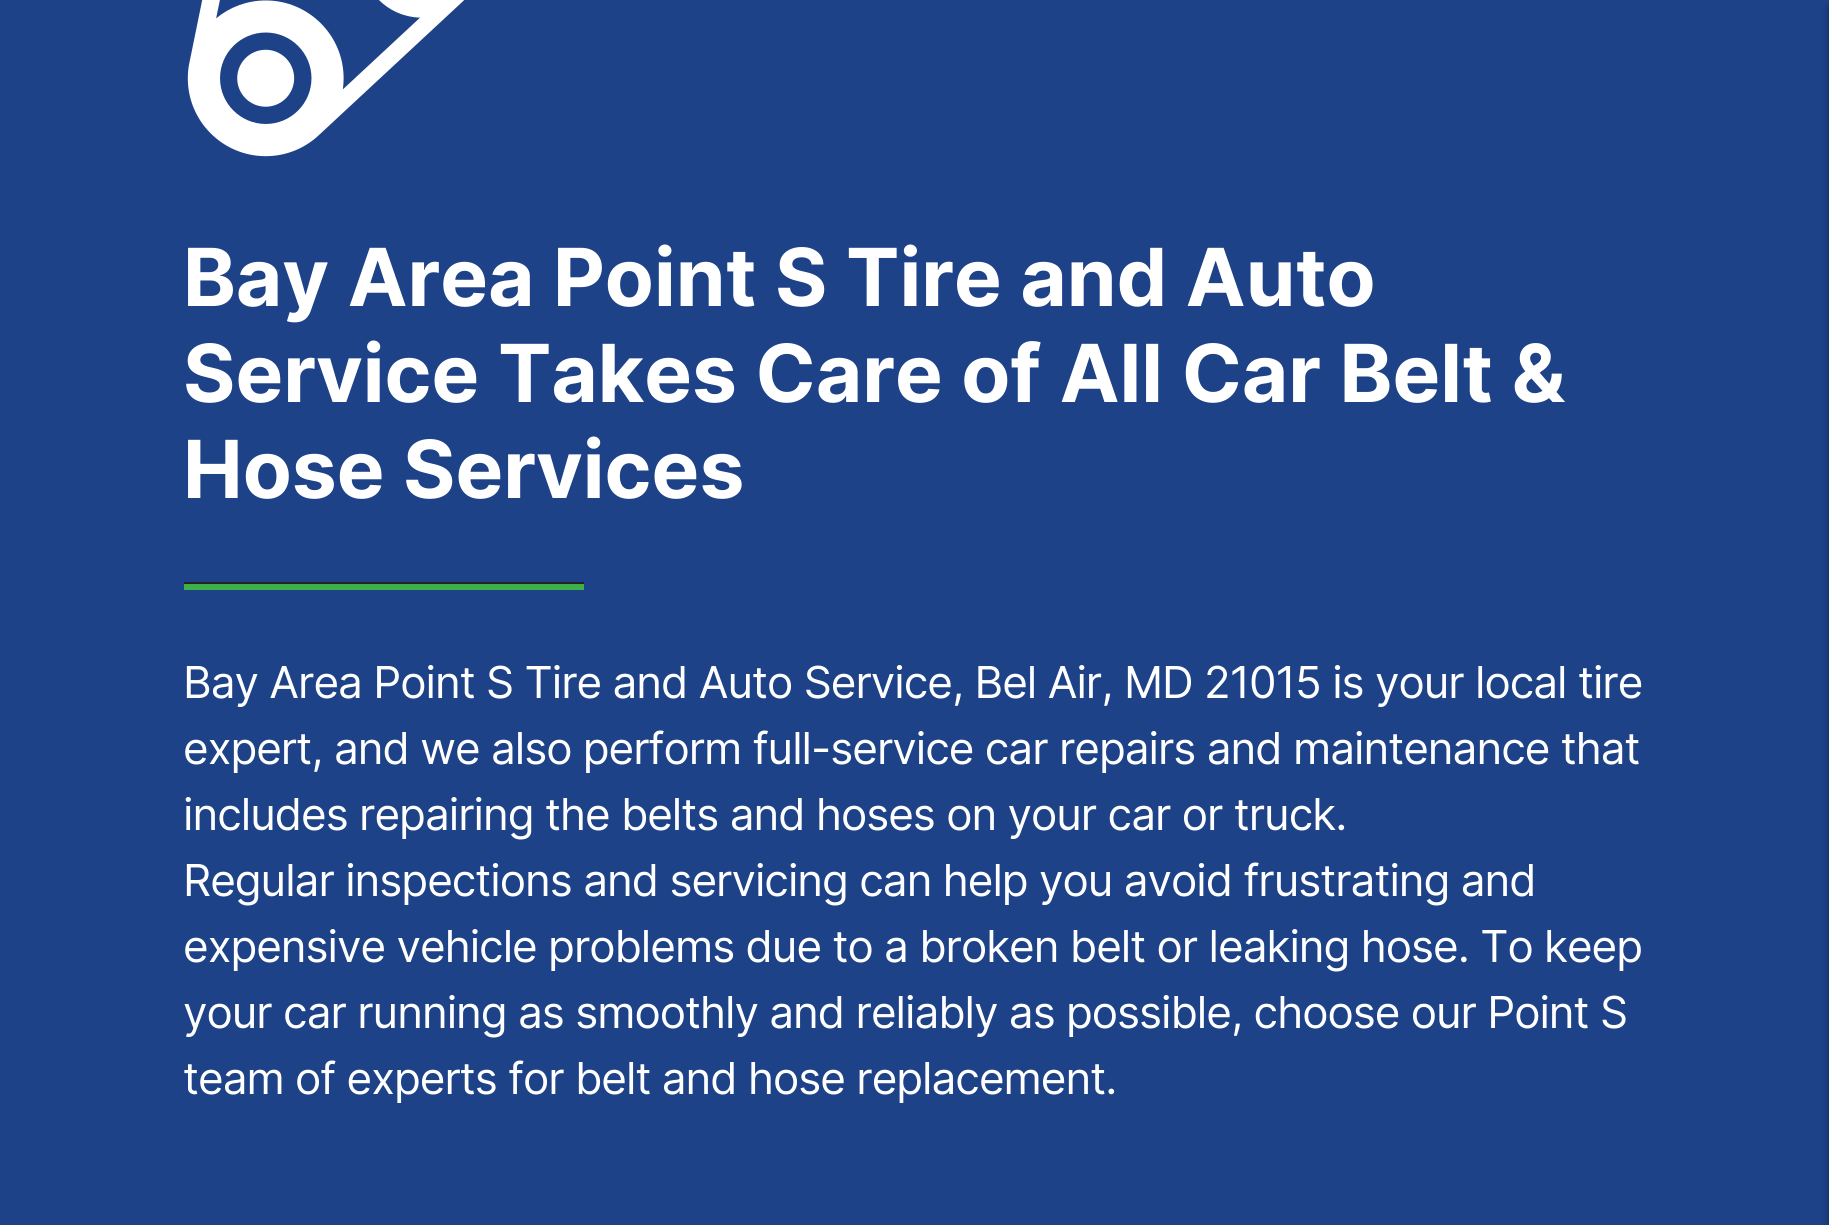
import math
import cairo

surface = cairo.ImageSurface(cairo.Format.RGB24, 1829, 1225)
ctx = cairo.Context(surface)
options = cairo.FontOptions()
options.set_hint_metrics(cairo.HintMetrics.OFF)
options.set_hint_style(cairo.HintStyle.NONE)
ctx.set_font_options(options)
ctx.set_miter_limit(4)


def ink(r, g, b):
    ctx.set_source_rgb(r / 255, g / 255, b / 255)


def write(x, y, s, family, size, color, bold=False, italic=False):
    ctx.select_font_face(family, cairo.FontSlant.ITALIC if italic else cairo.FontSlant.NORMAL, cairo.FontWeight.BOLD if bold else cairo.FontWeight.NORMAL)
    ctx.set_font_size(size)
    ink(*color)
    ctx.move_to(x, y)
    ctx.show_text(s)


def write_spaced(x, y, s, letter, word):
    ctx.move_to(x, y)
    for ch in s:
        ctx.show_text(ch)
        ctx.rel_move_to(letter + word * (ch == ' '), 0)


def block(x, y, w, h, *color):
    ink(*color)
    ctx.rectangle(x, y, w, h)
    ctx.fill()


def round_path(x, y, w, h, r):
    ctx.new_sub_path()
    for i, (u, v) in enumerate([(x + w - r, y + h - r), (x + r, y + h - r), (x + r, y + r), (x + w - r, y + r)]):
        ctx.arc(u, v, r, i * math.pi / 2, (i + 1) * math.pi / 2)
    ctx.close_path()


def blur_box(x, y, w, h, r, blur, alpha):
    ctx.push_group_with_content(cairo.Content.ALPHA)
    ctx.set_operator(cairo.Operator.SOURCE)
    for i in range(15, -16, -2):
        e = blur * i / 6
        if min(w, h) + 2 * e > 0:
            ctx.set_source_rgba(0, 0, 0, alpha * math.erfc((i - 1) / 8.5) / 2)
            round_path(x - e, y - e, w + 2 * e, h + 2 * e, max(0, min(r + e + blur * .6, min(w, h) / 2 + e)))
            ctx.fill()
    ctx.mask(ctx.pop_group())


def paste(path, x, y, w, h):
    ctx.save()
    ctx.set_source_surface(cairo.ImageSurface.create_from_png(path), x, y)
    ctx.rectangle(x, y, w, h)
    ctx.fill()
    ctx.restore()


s1 = dict(family="Inter", size=80, color=(255, 255, 255), bold=True)

ink(29, 66, 136)
ctx.paint()
ink(0, 0, 0)
blur_box(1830, 8, 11, 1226, 0, 4, 0.25)
paste("pic1.png", 187, 0, 278, 157)
write(183, 306, "Bay Area Point S Tire and Auto", **s1)
write(183, 402, "Service Takes Care of All Car Belt &", **s1)
write(183, 498, "Hose Services", **s1)
block(184, 584, 400, 6, 62, 176, 73)
block(184, 582, 400, 2, 33, 37, 41)
ctx.select_font_face("Inter")
ctx.set_font_size(44)
ink(255, 255, 255)
write_spaced(183, 698, "Bay Area Point S Tire and Auto Service, Bel Air, MD 21015 is your local tire", -1, 0)
write_spaced(183, 764, "expert, and we also perform full-service car repairs and maintenance that", -1, 0)
write_spaced(183, 830, "includes repairing the belts and hoses on your car or truck.", -1, 0)
write_spaced(183, 896, "Regular inspections and servicing can help you avoid frustrating and", -1, 0)
write_spaced(183, 962, "expensive vehicle problems due to a broken belt or leaking hose. To keep", -1, 0)
write_spaced(183, 1028, "your car running as smoothly and reliably as possible, choose our Point S", -1, 0)
write_spaced(183, 1094, "team of experts for belt and hose replacement.", -1, 0)
ink(0, 0, 0)
blur_box(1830, 8, 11, 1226, 0, 4, 0.25)
surface.write_to_png("screenshot.png")
